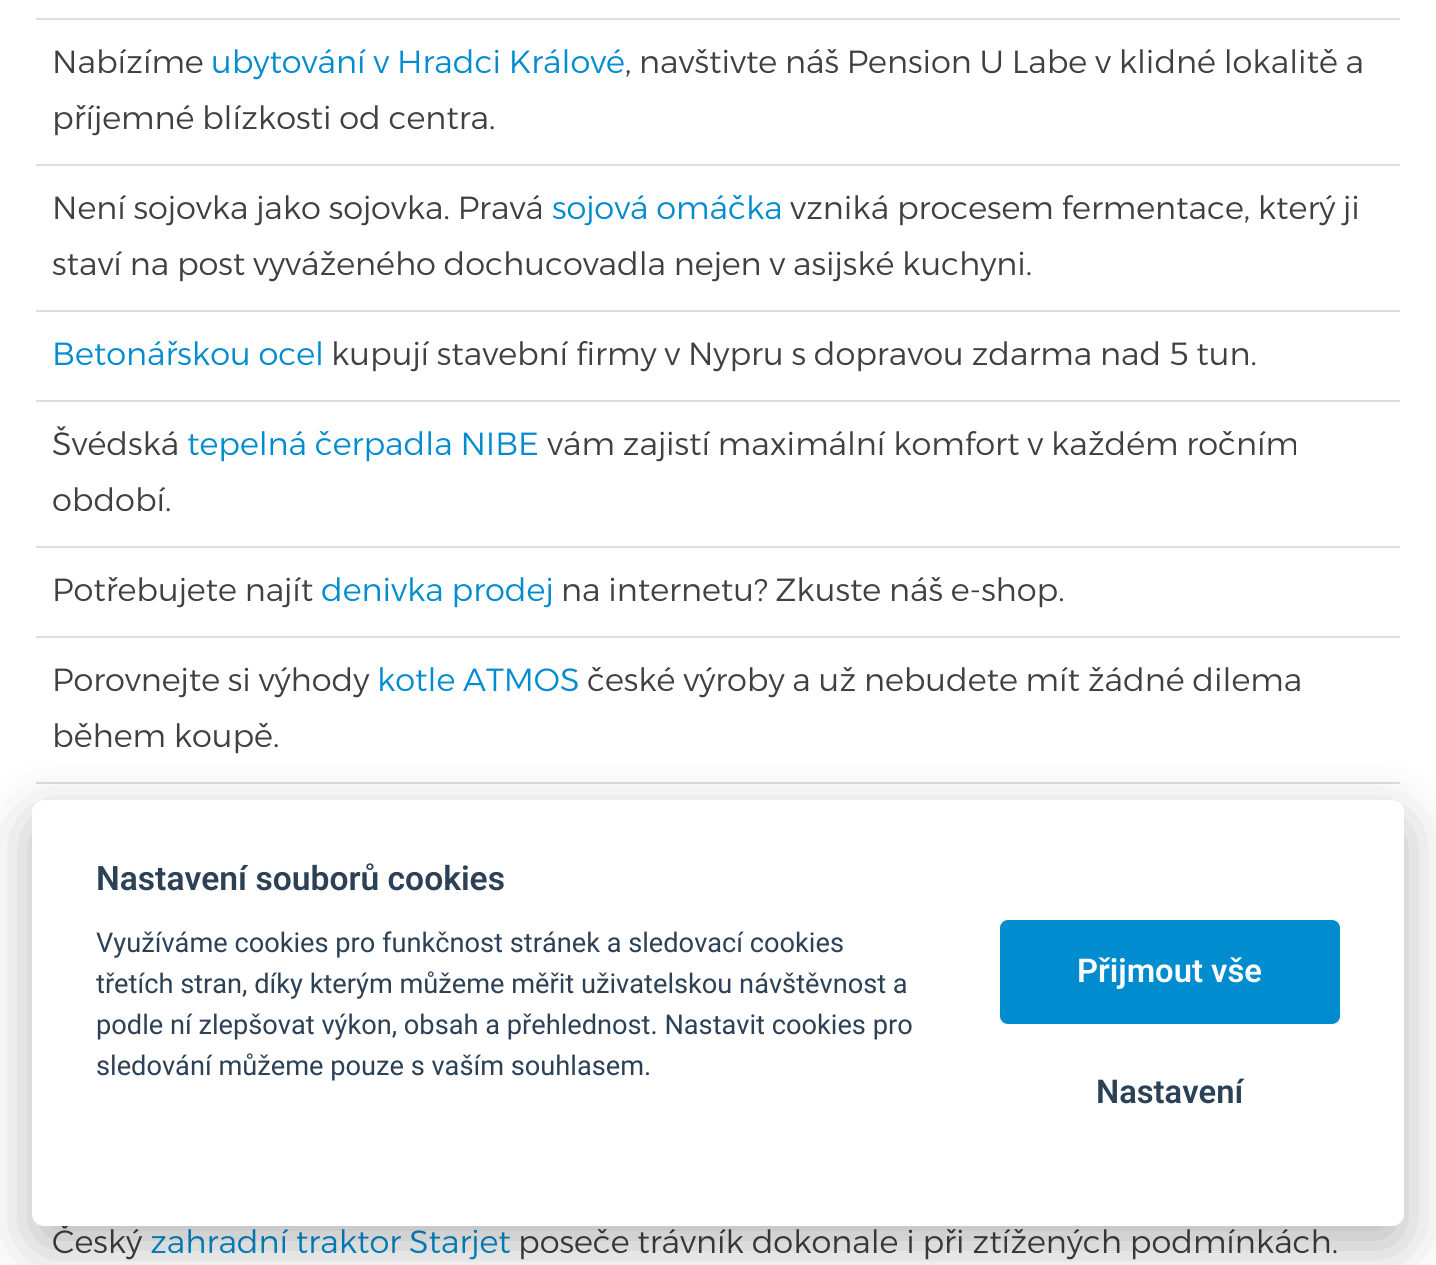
import math
import cairo

surface = cairo.ImageSurface(cairo.Format.RGB24, 1436, 1265)
ctx = cairo.Context(surface)
options = cairo.FontOptions()
options.set_hint_metrics(cairo.HintMetrics.OFF)
options.set_hint_style(cairo.HintStyle.NONE)
ctx.set_font_options(options)
ctx.set_miter_limit(4)


def ink(r, g, b):
    ctx.set_source_rgb(r / 255, g / 255, b / 255)


def write(x, y, s, family, size, color, bold=False, italic=False):
    ctx.select_font_face(family, cairo.FontSlant.ITALIC if italic else cairo.FontSlant.NORMAL, cairo.FontWeight.BOLD if bold else cairo.FontWeight.NORMAL)
    ctx.set_font_size(size)
    ink(*color)
    ctx.move_to(x, y)
    ctx.show_text(s)


def block(x, y, w, h, *color):
    ink(*color)
    ctx.rectangle(x, y, w, h)
    ctx.fill()


def round_path(x, y, w, h, r):
    ctx.new_sub_path()
    for i, (u, v) in enumerate([(x + w - r, y + h - r), (x + r, y + h - r), (x + r, y + r), (x + w - r, y + r)]):
        ctx.arc(u, v, r, i * math.pi / 2, (i + 1) * math.pi / 2)
    ctx.close_path()


def blur_box(x, y, w, h, r, blur, alpha):
    ctx.push_group_with_content(cairo.Content.ALPHA)
    ctx.set_operator(cairo.Operator.SOURCE)
    for i in range(15, -16, -2):
        e = blur * i / 6
        if min(w, h) + 2 * e > 0:
            ctx.set_source_rgba(0, 0, 0, alpha * math.erfc((i - 1) / 8.5) / 2)
            round_path(x - e, y - e, w + 2 * e, h + 2 * e, max(0, min(r + e + blur * .6, min(w, h) / 2 + e)))
            ctx.fill()
    ctx.mask(ctx.pop_group())


s1 = dict(family="Alexandria Light", size=32, color=(64, 64, 64))
s2 = dict(family="Alexandria Light", size=32, color=(0, 140, 207))
s3 = dict(family="Roboto SemiBold", size=33.6, color=(45, 65, 86))
s4 = dict(family="Roboto", size=27.2, color=(45, 65, 86))
s5 = dict(family="Roboto SemiBold", size=32.75, color=(255, 255, 255))
s6 = dict(family="Roboto SemiBold", size=32.75, color=(45, 65, 86))

ink(255, 255, 255)
ctx.paint()
block(36, 18, 1364, 2, 221, 221, 221)
block(36, 164, 1364, 2, 221, 221, 221)
write(52, 73, "Nabízíme", **s1)
write(211, 73, "ubytování v Hradci Králové", **s2)
write(625, 73, ", navštivte náš Pension U Labe v klidné lokalitě a", **s1)
write(52, 129, "příjemné blízkosti od centra.", **s1)
block(36, 310, 1364, 2, 221, 221, 221)
write(52, 219, "Není sojovka jako sojovka. Pravá", **s1)
write(552, 219, "sojová omáčka", **s2)
write(790, 219, "vzniká procesem fermentace, který ji", **s1)
write(52, 275, "staví na post vyváženého dochucovadla nejen v asijské kuchyni.", **s1)
block(36, 400, 1364, 2, 221, 221, 221)
write(52, 365, "Betonářskou ocel", **s2)
write(331, 365, "kupují stavební firmy v Nypru s dopravou zdarma nad 5 tun.", **s1)
block(36, 546, 1364, 2, 221, 221, 221)
write(52, 455, "Švédská", **s1)
write(187, 455, "tepelná čerpadla NIBE", **s2)
write(547, 455, "vám zajistí maximální komfort v každém ročním", **s1)
write(52, 511, "období.", **s1)
block(36, 636, 1364, 2, 221, 221, 221)
write(52, 601, "Potřebujete najít", **s1)
write(321, 601, "denivka prodej", **s2)
write(561, 601, "na internetu? Zkuste náš e-shop.", **s1)
block(36, 782, 1364, 2, 221, 221, 221)
write(52, 691, "Porovnejte si výhody", **s1)
write(377, 691, "kotle ATMOS", **s2)
write(587, 691, "české výroby a už nebudete mít žádné dilema", **s1)
write(52, 747, "během koupě.", **s1)
write(52, 1253, "Český", **s1)
write(150, 1253, "zahradní traktor Starjet", **s2)
write(518, 1253, "poseče trávník dokonale i při ztížených podmínkách.", **s1)
ink(2, 2, 3)
blur_box(32, 820, 1372, 426, 12, 30, 0.28)
ink(255, 255, 255)
round_path(32, 800, 1372, 426, 12)
ctx.fill()
write(96, 890, "Nastavení souborů cookies", **s3)
write(96, 952, "Využíváme cookies pro funkčnost stránek a sledovací cookies", **s4)
write(96, 993, "třetích stran, díky kterým můžeme měřit uživatelskou návštěvnost a", **s4)
write(96, 1034, "podle ní zlepšovat výkon, obsah a přehlednost. Nastavit cookies pro", **s4)
write(96, 1075, "sledování můžeme pouze s vaším souhlasem.", **s4)
ink(0, 140, 207)
round_path(1000, 920, 340, 104, 8)
ctx.fill()
write(1077, 982, "Přijmout vše", **s5)
write(1096, 1103, "Nastavení", **s6)
surface.write_to_png("screenshot.png")
